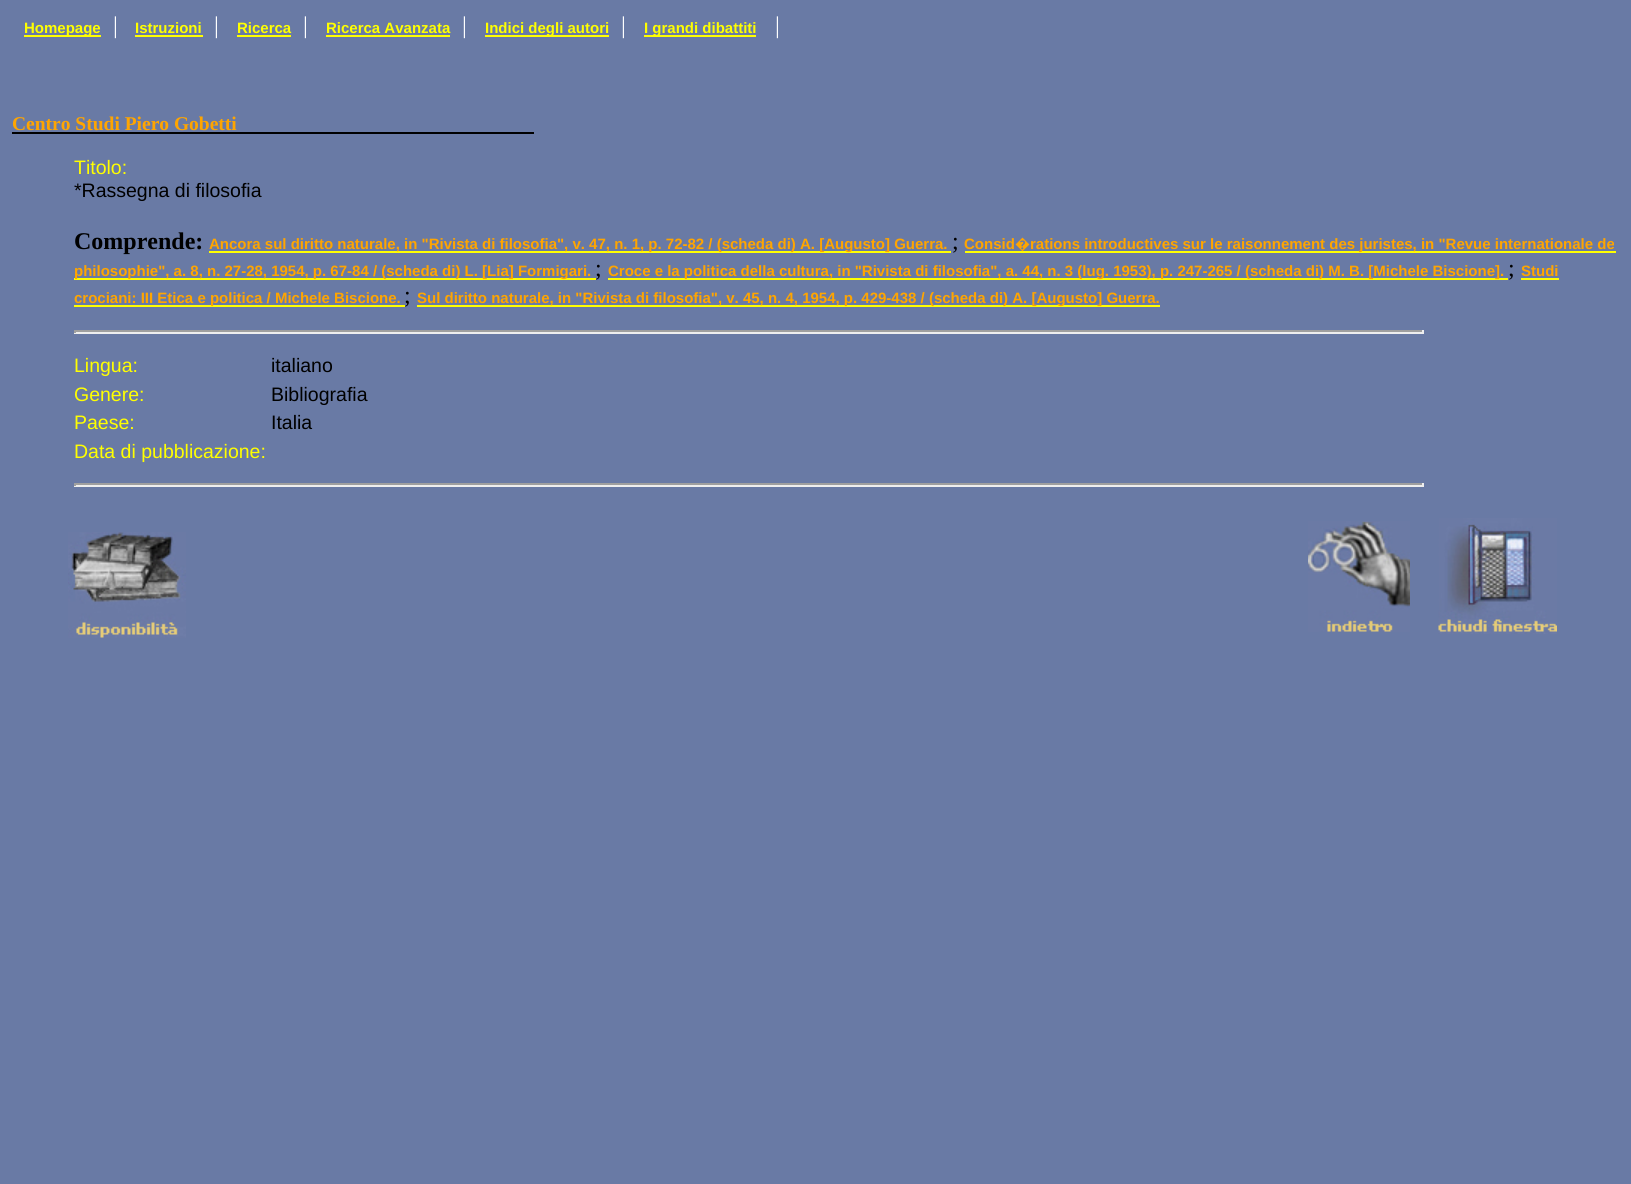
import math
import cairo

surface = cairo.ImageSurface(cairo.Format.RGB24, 1631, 1184)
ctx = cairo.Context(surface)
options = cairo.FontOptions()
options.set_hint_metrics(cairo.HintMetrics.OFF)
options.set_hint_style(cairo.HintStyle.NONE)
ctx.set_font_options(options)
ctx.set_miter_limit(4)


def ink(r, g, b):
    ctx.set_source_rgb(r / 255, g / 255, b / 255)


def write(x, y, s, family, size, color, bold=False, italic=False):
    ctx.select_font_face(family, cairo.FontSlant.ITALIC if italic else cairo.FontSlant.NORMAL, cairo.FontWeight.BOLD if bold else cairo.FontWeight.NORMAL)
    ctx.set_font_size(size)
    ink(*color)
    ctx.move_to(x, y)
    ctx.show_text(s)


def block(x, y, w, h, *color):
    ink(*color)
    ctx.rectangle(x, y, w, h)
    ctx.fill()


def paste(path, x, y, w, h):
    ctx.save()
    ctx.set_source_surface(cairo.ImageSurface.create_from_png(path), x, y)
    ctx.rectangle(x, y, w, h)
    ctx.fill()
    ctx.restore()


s1 = dict(family="Liberation Sans", size=15, color=(255, 255, 0), bold=True)
s2 = dict(family="Liberation Serif", size=24, color=(255, 255, 255))
s3 = dict(family="Liberation Serif", size=19.5, color=(255, 165, 0), bold=True)
s4 = dict(family="Liberation Sans", size=19.5, color=(255, 255, 0))
s5 = dict(family="Liberation Sans", size=19.5, color=(0, 0, 0))
s6 = dict(family="Liberation Serif", size=24, color=(0, 0, 0), bold=True)
s7 = dict(family="Liberation Sans", size=15, color=(255, 165, 0), bold=True)
s8 = dict(family="Liberation Serif", size=24, color=(0, 0, 0))
s9 = dict(family="Noto Sans ExtraBold", size=15, color=(255, 165, 0))

ink(105, 122, 165)
ctx.paint()
block(24, 35, 77, 2, 255, 255, 0)
write(24, 33, "Homepage", **s1)
write(113, 33, "|", **s2)
write(135, 33, "Istruzioni", **s1)
block(135, 35, 68, 2, 255, 255, 0)
write(214, 33, "|", **s2)
write(237, 33, "Ricerca", **s1)
block(237, 35, 54, 2, 255, 255, 0)
write(303, 33, "|", **s2)
write(326, 33, "Ricerca Avanzata", **s1)
block(326, 35, 124, 2, 255, 255, 0)
write(462, 33, "|", **s2)
block(485, 35, 124, 2, 255, 255, 0)
write(485, 33, "Indici degli autori", **s1)
write(621, 33, "|", **s2)
block(644, 35, 112, 2, 255, 255, 0)
write(644, 33, "I grandi dibattiti", **s1)
write(775, 33, "|", **s2)
write(12, 130, "Centro Studi Piero Gobetti", **s3)
block(12, 132, 522, 2, 0, 0, 0)
write(74, 174, "Titolo:", **s4)
write(74, 197, "*Rassegna di filosofia", **s5)
write(74, 249, "Comprende:", **s6)
block(209, 251, 742, 2, 255, 255, 0)
write(209, 249, "Ancora sul diritto naturale, in \"Rivista di filosofia\", v. 47, n. 1, p. 72-82 / (scheda di) A. [Augusto] Guerra.", **s7)
write(952, 249, ";", **s8)
write(964, 249, "Consid", **s7)
block(965, 251, 651, 2, 255, 255, 0)
write(1015, 249, "�", **s9)
write(1030, 249, "rations introductives sur le raisonnement des juristes, in \"Revue internationale de", **s7)
block(74, 278, 522, 2, 255, 255, 0)
write(74, 276, "philosophie\", a. 8, n. 27-28, 1954, p. 67-84 / (scheda di) L. [Lia] Formigari.", **s7)
write(595, 276, ";", **s8)
block(608, 278, 900, 2, 255, 255, 0)
write(608, 276, "Croce e la politica della cultura, in \"Rivista di filosofia\", a. 44, n. 3 (lug. 1953), p. 247-265 / (scheda di) M. B. [Michele Biscione].", **s7)
write(1508, 276, ";", **s8)
write(1521, 276, "Studi", **s7)
block(1521, 278, 38, 2, 255, 255, 0)
block(74, 305, 331, 2, 255, 255, 0)
write(74, 303, "crociani: III Etica e politica / Michele Biscione.", **s7)
write(404, 303, ";", **s8)
block(417, 305, 743, 2, 255, 255, 0)
write(417, 303, "Sul diritto naturale, in \"Rivista di filosofia\", v. 45, n. 4, 1954, p. 429-438 / (scheda di) A. [Augusto] Guerra.", **s7)
block(74, 330, 1350, 2, 159, 159, 159)
block(1422, 330, 2, 3, 238, 238, 238)
block(74, 332, 1350, 2, 238, 238, 238)
block(74, 330, 2, 3, 159, 159, 159)
write(74, 372, "Lingua:", **s4)
write(271, 372, "italiano", **s5)
write(74, 401, "Genere:", **s4)
write(271, 401, "Bibliografia", **s5)
write(74, 429, "Paese:", **s4)
write(271, 429, "Italia", **s5)
write(74, 458, "Data di pubblicazione:", **s4)
block(74, 483, 1350, 2, 159, 159, 159)
block(1422, 483, 2, 3, 238, 238, 238)
block(74, 485, 1350, 2, 238, 238, 238)
block(74, 483, 2, 3, 159, 159, 159)
paste("pic1.png", 68, 532, 118, 106)
paste("pic2.png", 1308, 521, 102, 111)
paste("pic3.png", 1438, 518, 119, 116)
surface.write_to_png("screenshot.png")
